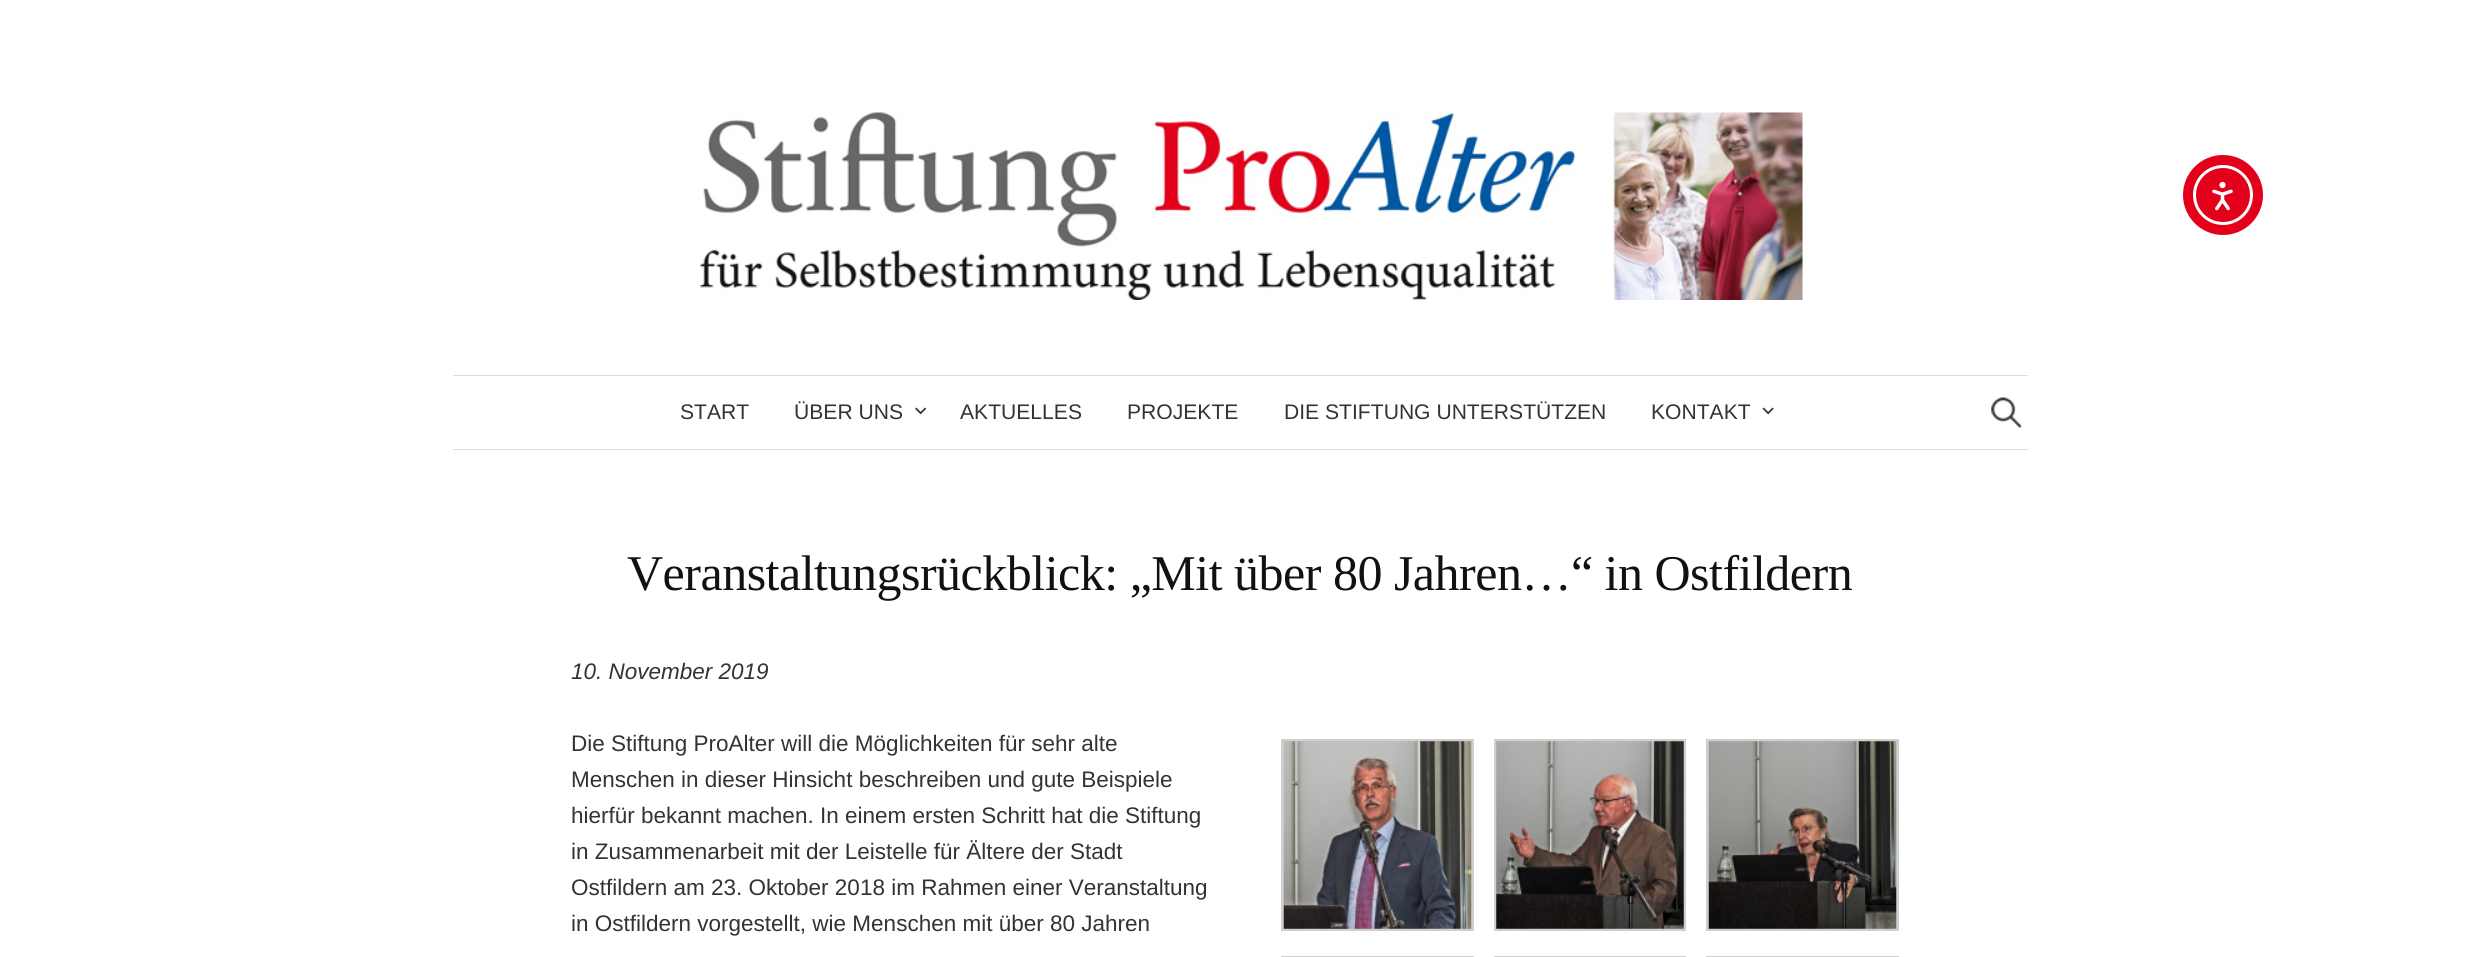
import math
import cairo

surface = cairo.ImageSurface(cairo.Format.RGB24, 2480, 957)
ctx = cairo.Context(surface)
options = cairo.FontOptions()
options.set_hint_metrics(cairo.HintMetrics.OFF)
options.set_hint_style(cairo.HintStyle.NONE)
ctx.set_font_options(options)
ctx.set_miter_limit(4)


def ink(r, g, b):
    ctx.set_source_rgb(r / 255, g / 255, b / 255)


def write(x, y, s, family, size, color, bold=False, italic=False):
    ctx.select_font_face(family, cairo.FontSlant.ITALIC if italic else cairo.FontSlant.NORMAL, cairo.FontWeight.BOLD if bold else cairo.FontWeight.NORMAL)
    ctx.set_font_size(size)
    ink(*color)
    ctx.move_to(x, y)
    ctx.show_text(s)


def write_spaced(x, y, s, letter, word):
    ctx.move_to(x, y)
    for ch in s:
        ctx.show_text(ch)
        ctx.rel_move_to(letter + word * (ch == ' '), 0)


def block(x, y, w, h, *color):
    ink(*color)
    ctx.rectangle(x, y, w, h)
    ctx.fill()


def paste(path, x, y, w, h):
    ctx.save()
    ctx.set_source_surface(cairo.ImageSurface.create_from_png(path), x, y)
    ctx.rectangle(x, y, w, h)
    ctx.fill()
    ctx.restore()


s1 = dict(family="Liberation Sans", size=21.1, color=(51, 51, 51))
s2 = dict(family="Liberation Sans", size=22.5, color=(51, 51, 51), italic=True)
s3 = dict(family="Liberation Sans", size=22.5, color=(51, 51, 51))

ink(255, 255, 255)
ctx.paint()
ink(228, 0, 27)
ctx.arc(2223, 195, 40, 0, 2 * math.pi)
ctx.fill()
ctx.arc(2223, 195, 28.5, 0, 2 * math.pi)
ink(255, 255, 255)
ctx.set_line_width(3)
ctx.stroke()
paste("pic1.png", 2212, 181, 21, 30)
paste("pic2.png", 699, 112, 1104, 188)
block(453, 375, 1575, 1, 221, 221, 221)
block(453, 449, 1575, 1, 221, 221, 221)
write(680, 419, "START", **s1)
write(794, 419, "ÜBER UNS", **s1)
paste("pic3.png", 915, 407, 12, 8)
write(960, 419, "AKTUELLES", **s1)
write(1127, 419, "PROJEKTE", **s1)
write(1284, 419, "DIE STIFTUNG UNTERSTÜTZEN", **s1)
write(1651, 419, "KONTAKT", **s1)
paste("pic4.png", 1762, 407, 12, 8)
paste("pic5.png", 1991, 397, 31, 31)
ctx.select_font_face("Liberation Serif")
ctx.set_font_size(50)
ink(17, 17, 17)
write_spaced(627, 590, "Veranstaltungsrückblick: „Mit über 80 Jahren…“ in Ostfildern", -0.5, 0)
write(571, 679, "10. November 2019", **s2)
write(571, 751, "Die Stiftung ProAlter will die Möglichkeiten für sehr alte", **s3)
write(571, 787, "Menschen in dieser Hinsicht beschreiben und gute Beispiele", **s3)
write(571, 823, "hierfür bekannt machen. In einem ersten Schritt hat die Stiftung", **s3)
write(571, 859, "in Zusammenarbeit mit der Leistelle für Ältere der Stadt", **s3)
write(571, 895, "Ostfildern am 23. Oktober 2018 im Rahmen einer Veranstaltung", **s3)
write(571, 931, "in Ostfildern vorgestellt, wie Menschen mit über 80 Jahren", **s3)
ctx.rectangle(1282.5, 740.5, 190, 189)
ink(207, 207, 207)
ctx.stroke()
paste("pic6.png", 1283, 741, 189, 188)
ctx.rectangle(1495.5, 740.5, 189, 189)
ctx.stroke()
paste("pic7.png", 1496, 741, 188, 188)
ctx.rectangle(1707.5, 740.5, 190, 189)
ctx.stroke()
paste("pic8.png", 1708, 741, 189, 188)
ctx.rectangle(1282.5, 957.5, 190, 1)
ctx.stroke()
ctx.rectangle(1495.5, 957.5, 189, 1)
ctx.stroke()
ctx.rectangle(1707.5, 957.5, 190, 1)
ctx.stroke()
surface.write_to_png("screenshot.png")
